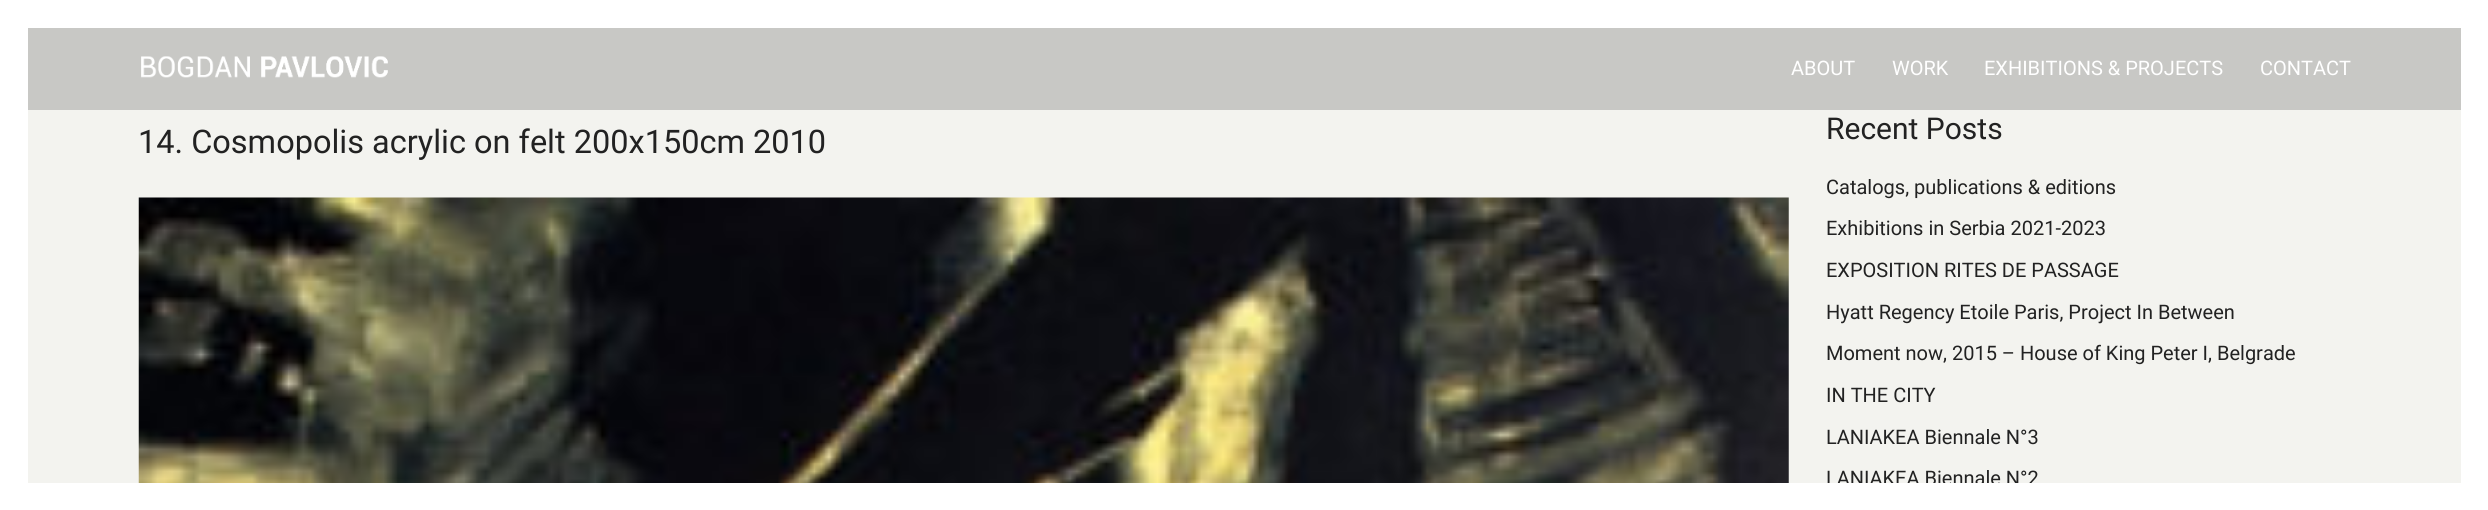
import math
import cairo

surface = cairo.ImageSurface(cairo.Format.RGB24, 2488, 510)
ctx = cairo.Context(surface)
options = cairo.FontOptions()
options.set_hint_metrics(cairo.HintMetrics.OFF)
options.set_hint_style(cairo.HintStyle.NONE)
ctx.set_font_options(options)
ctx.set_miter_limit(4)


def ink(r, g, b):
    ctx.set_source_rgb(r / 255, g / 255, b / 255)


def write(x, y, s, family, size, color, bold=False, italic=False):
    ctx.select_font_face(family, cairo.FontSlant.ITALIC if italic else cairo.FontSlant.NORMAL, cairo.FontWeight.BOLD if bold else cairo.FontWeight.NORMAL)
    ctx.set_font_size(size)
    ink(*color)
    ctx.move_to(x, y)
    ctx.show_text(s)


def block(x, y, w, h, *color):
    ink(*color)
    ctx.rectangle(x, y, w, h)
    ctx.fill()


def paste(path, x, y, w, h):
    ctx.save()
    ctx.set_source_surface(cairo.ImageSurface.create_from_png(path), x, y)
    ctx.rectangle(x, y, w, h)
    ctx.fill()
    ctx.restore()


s1 = dict(family="Roboto", size=20, color=(34, 34, 34))
s2 = dict(family="Roboto", size=20, color=(255, 255, 255))
s3 = dict(family="Roboto", size=32.5, color=(34, 34, 34))
s4 = dict(family="Roboto", size=30, color=(34, 34, 34))

ink(243, 243, 239)
ctx.paint()
block(0, 0, 28, 510, 255, 255, 255)
block(28, 0, 2433, 28, 255, 255, 255)
block(2461, 0, 27, 483, 255, 255, 255)
write(1826, 485, "LANIAKEA Biennale N°2", **s1)
block(28, 483, 2460, 27, 255, 255, 255)
block(28, 28, 2433, 82, 200, 200, 197)
paste("pic1.png", 141, 56, 247, 22)
write(1791, 75, "ABOUT", **s2)
write(1892, 75, "WORK", **s2)
write(1984, 75, "EXHIBITIONS & PROJECTS", **s2)
write(2260, 75, "CONTACT", **s2)
write(138, 153, "14. Cosmopolis acrylic on felt 200x150cm 2010", **s3)
paste("pic2.png", 138, 197, 1651, 286)
write(1826, 139, "Recent Posts", **s4)
write(1826, 194, "Catalogs, publications & editions", **s1)
write(1826, 235, "Exhibitions in Serbia 2021-2023", **s1)
write(1826, 277, "EXPOSITION RITES DE PASSAGE", **s1)
write(1826, 319, "Hyatt Regency Etoile Paris, Project In Between", **s1)
write(1826, 360, "Moment now, 2015 – House of King Peter I, Belgrade", **s1)
write(1826, 402, "IN THE CITY", **s1)
write(1826, 444, "LANIAKEA Biennale N°3", **s1)
surface.write_to_png("screenshot.png")
